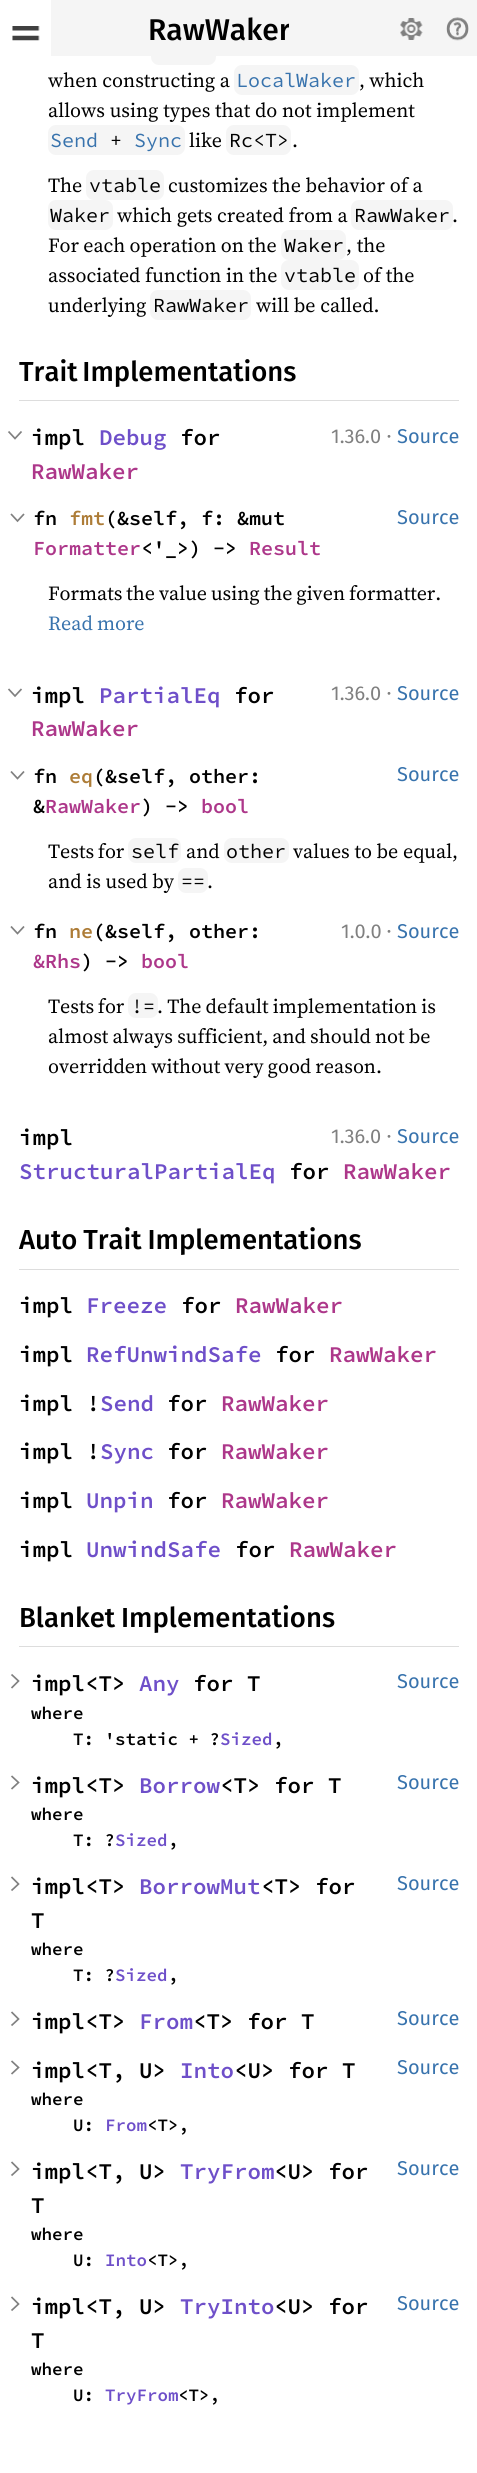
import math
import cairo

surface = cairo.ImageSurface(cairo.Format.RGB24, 477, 2473)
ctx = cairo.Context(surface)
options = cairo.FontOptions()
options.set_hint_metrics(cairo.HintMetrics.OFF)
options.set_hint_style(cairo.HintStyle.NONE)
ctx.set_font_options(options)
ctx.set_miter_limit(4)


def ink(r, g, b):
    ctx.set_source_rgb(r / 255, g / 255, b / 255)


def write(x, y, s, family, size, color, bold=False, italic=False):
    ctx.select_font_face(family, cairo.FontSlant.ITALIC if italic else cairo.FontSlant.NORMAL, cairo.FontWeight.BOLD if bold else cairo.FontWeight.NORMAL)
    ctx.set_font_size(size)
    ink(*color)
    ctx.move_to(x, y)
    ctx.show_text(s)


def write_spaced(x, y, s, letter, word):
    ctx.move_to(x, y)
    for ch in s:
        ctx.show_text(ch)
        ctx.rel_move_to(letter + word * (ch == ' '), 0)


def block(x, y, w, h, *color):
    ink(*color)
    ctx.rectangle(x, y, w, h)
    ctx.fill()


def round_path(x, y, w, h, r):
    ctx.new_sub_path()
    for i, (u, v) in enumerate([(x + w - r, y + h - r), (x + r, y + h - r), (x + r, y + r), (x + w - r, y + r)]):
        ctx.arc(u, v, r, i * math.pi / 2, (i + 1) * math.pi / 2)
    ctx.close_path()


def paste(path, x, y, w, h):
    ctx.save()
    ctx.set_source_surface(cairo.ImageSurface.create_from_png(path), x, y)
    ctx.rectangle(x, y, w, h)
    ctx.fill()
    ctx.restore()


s1 = dict(family="Fira Sans Medium", size=30, color=(0, 0, 0))
s2 = dict(family="Source Serif 4", size=20, color=(0, 0, 0))
s3 = dict(family="Source Code Pro", size=20, color=(56, 115, 173))
s4 = dict(family="Source Code Pro", size=20, color=(0, 0, 0))
s5 = dict(family="Source Code Pro SemiBold", size=22.5, color=(0, 0, 0))
s6 = dict(family="Source Code Pro SemiBold", size=22.5, color=(110, 79, 201))
s7 = dict(family="Source Code Pro SemiBold", size=22.5, color=(173, 55, 138))
s8 = dict(family="Fira Sans", size=20, color=(128, 128, 128))
s9 = dict(family="Source Serif 4", size=20, color=(128, 128, 128))
s10 = dict(family="Fira Sans", size=20, color=(56, 115, 173))
s11 = dict(family="Source Code Pro SemiBold", size=20, color=(0, 0, 0))
s12 = dict(family="Source Code Pro SemiBold", size=20, color=(173, 124, 55))
s13 = dict(family="Source Code Pro SemiBold", size=20, color=(173, 55, 138))
s14 = dict(family="Source Code Pro SemiBold", size=17.5, color=(0, 0, 0))
s15 = dict(family="Source Code Pro SemiBold", size=17.5, color=(110, 79, 201))

ink(255, 255, 255)
ctx.paint()
ink(245, 245, 245)
round_path(151, 35, 65, 30, 8)
ctx.fill()
block(51, 0, 426, 56, 245, 245, 245)
paste("pic1.png", 12, 26, 28, 15)
ctx.save()
ctx.rectangle(148, 8, 141, 41)
ctx.clip()
write(148, 40, "RawWaker", **s1)
ctx.restore()
paste("pic2.png", 400, 18, 23, 22)
paste("pic3.png", 446, 17, 23, 24)
write(48, 87, "when constructing a", **s2)
ink(245, 245, 245)
round_path(234, 65, 125, 30, 8)
ctx.fill()
write(236, 87, "LocalWaker", **s3)
ctx.select_font_face("Source Serif 4")
ink(0, 0, 0)
write_spaced(359, 87, ", which", 0, -0.5)
write(48, 117, "allows using types that do not implement", **s2)
ink(245, 245, 245)
round_path(48, 125, 137, 30, 8)
ctx.fill()
write(50, 147, "Send", **s3)
write(110, 147, "+", **s4)
write(134, 147, "Sync", **s3)
write(189, 147, "like", **s2)
ink(245, 245, 245)
round_path(226, 125, 65, 30, 8)
ctx.fill()
write(229, 147, "Rc<T>", **s4)
write(292, 147, ".", **s2)
write(48, 192, "The", **s2)
ink(245, 245, 245)
round_path(86, 170, 78, 30, 8)
ctx.fill()
write(89, 192, "vtable", **s4)
write(168, 192, "customizes the behavior of a", **s2)
ink(245, 245, 245)
round_path(48, 200, 65, 30, 8)
ctx.fill()
write(50, 222, "Waker", **s4)
write(117, 222, "which gets created from a", **s2)
ink(245, 245, 245)
round_path(351, 200, 102, 30, 8)
ctx.fill()
write(354, 222, "RawWaker", **s4)
write(452, 222, ".", **s2)
write_spaced(48, 252, "For each operation on the", 0, -0.5)
ink(245, 245, 245)
round_path(281, 230, 65, 30, 8)
ctx.fill()
write(284, 252, "Waker", **s4)
write(346, 252, ", the", **s2)
write(48, 282, "associated function in the", **s2)
ink(245, 245, 245)
round_path(281, 260, 78, 30, 8)
ctx.fill()
write(284, 282, "vtable", **s4)
write(363, 282, "of the", **s2)
write(48, 312, "underlying", **s2)
ink(245, 245, 245)
round_path(150, 290, 101, 30, 8)
ctx.fill()
write(153, 312, "RawWaker", **s4)
write(256, 312, "will be called.", **s2)
block(19, 400, 440, 1, 221, 221, 221)
ctx.select_font_face("Fira Sans Medium")
ctx.set_font_size(27.5)
ink(0, 0, 0)
write_spaced(19, 381, "Trait Implementations", 0, -2)
ctx.new_path()
ctx.move_to(8.5, 431.5)
ctx.line_to(15, 438.5)
ctx.line_to(21.5, 431.5)
ink(128, 128, 128)
ctx.set_line_width(1.7)
ctx.stroke()
write(31, 445, "impl", **s5)
write(99, 445, "Debug", **s6)
write(180, 445, "for", **s5)
write(31, 479, "RawWaker", **s7)
write(331, 443, "1.36.0", **s8)
write(386, 443, "·", **s9)
write(397, 443, "Source", **s10)
ctx.new_path()
ctx.move_to(11, 514)
ctx.line_to(17.5, 521)
ctx.line_to(24, 514)
ink(128, 128, 128)
ctx.stroke()
write(33, 525, "fn", **s11)
write(69, 525, "fmt", **s12)
write(105, 525, "(&self, f: &mut", **s11)
write(33, 555, "Formatter", **s13)
write(141, 555, "<'_>) ->", **s11)
write(249, 555, "Result", **s13)
write(397, 524, "Source", **s10)
ctx.select_font_face("Source Serif 4")
ink(0, 0, 0)
write_spaced(48, 600, "Formats the value using the given formatter.", 0, -0.75)
ink(56, 115, 173)
write_spaced(48, 630, "Read more", 0, -0.5)
ctx.new_path()
ctx.move_to(8.5, 689)
ctx.line_to(15, 696)
ctx.line_to(21.5, 689)
ink(128, 128, 128)
ctx.stroke()
write(31, 703, "impl", **s5)
write(99, 703, "PartialEq", **s6)
write(234, 703, "for", **s5)
write(31, 736, "RawWaker", **s7)
write(331, 700, "1.36.0", **s8)
write(386, 700, "·", **s9)
write(397, 700, "Source", **s10)
ctx.new_path()
ctx.move_to(11, 771.5)
ctx.line_to(17.5, 778.5)
ctx.line_to(24, 771.5)
ink(128, 128, 128)
ctx.stroke()
write(33, 783, "fn", **s11)
write(69, 783, "eq", **s12)
write(93, 783, "(&self, other:", **s11)
write(33, 813, "&", **s11)
write(45, 813, "RawWaker", **s13)
write(141, 813, ") ->", **s11)
write(201, 813, "bool", **s13)
write(397, 781, "Source", **s10)
ctx.select_font_face("Source Serif 4")
ink(0, 0, 0)
write_spaced(48, 858, "Tests for", 0, -1)
ink(245, 245, 245)
round_path(128, 838, 53, 25, 8)
ctx.fill()
write(131, 858, "self", **s4)
write(186, 858, "and", **s2)
ink(245, 245, 245)
round_path(224, 838, 65, 25, 8)
ctx.fill()
write(226, 858, "other", **s4)
write(293, 858, "values to be equal,", **s2)
write(48, 888, "and is used by", **s2)
ink(245, 245, 245)
round_path(178, 868, 30, 25, 8)
ctx.fill()
write(181, 888, "==", **s4)
write(207, 888, ".", **s2)
ctx.new_path()
ctx.move_to(11, 926.5)
ctx.line_to(17.5, 933.5)
ctx.line_to(24, 926.5)
ink(128, 128, 128)
ctx.stroke()
write(33, 938, "fn", **s11)
write(69, 938, "ne", **s12)
write(93, 938, "(&self, other:", **s11)
write(33, 968, "&Rhs", **s13)
write(81, 968, ") ->", **s11)
write(141, 968, "bool", **s13)
write(341, 938, "1.0.0", **s8)
write(386, 938, "·", **s9)
write(397, 938, "Source", **s10)
ctx.select_font_face("Source Serif 4")
ink(0, 0, 0)
write_spaced(48, 1013, "Tests for", 0, -1)
ink(245, 245, 245)
round_path(128, 993, 30, 25, 8)
ctx.fill()
write(131, 1013, "!=", **s4)
ctx.select_font_face("Source Serif 4")
write_spaced(157, 1013, ". The default implementation is", 0, -0.5)
write_spaced(48, 1043, "almost always sufficient, and should not be", 0, -0.5)
write_spaced(48, 1073, "overridden without very good reason.", 0, -0.5)
write(19, 1145, "impl", **s5)
write(19, 1179, "StructuralPartialEq", **s6)
write(289, 1179, "for", **s5)
write(343, 1179, "RawWaker", **s7)
write(331, 1143, "1.36.0", **s8)
write(386, 1143, "·", **s9)
write(397, 1143, "Source", **s10)
block(19, 1269, 440, 1, 221, 221, 221)
ctx.select_font_face("Fira Sans Medium")
ctx.set_font_size(27.5)
ink(0, 0, 0)
write_spaced(19, 1249, "Auto Trait Implementations", 0, -1)
write(19, 1313, "impl", **s5)
write(86, 1313, "Freeze", **s6)
write(181, 1313, "for", **s5)
write(235, 1313, "RawWaker", **s7)
write(19, 1362, "impl", **s5)
write(86, 1362, "RefUnwindSafe", **s6)
write(275, 1362, "for", **s5)
write(329, 1362, "RawWaker", **s7)
write(19, 1411, "impl !", **s5)
write(100, 1411, "Send", **s6)
write(167, 1411, "for", **s5)
write(221, 1411, "RawWaker", **s7)
write(19, 1459, "impl !", **s5)
write(100, 1459, "Sync", **s6)
write(167, 1459, "for", **s5)
write(221, 1459, "RawWaker", **s7)
write(19, 1508, "impl", **s5)
write(86, 1508, "Unpin", **s6)
write(167, 1508, "for", **s5)
write(221, 1508, "RawWaker", **s7)
write(19, 1557, "impl", **s5)
write(86, 1557, "UnwindSafe", **s6)
write(235, 1557, "for", **s5)
write(289, 1557, "RawWaker", **s7)
block(19, 1646, 440, 1, 221, 221, 221)
ctx.select_font_face("Fira Sans Medium")
ctx.set_font_size(27.5)
ink(0, 0, 0)
write_spaced(19, 1627, "Blanket Implementations", 0, -1)
ctx.new_path()
ctx.move_to(11.5, 1674.5)
ctx.line_to(18.5, 1681)
ctx.line_to(11.5, 1688)
ink(128, 128, 128)
ctx.stroke()
write(31, 1691, "impl<T>", **s5)
write(139, 1691, "Any", **s6)
write(193, 1691, "for T", **s5)
write(31, 1719, "where", **s14)
write(73, 1745, "T: 'static + ?", **s14)
write(220, 1745, "Sized", **s15)
write(273, 1745, ",", **s14)
write(397, 1688, "Source", **s10)
ctx.new_path()
ctx.move_to(11.5, 1776)
ctx.line_to(18.5, 1782.5)
ctx.line_to(11.5, 1789)
ink(128, 128, 128)
ctx.stroke()
write(31, 1793, "impl<T>", **s5)
write(139, 1793, "Borrow", **s6)
write(220, 1793, "<T> for T", **s5)
write(31, 1820, "where", **s14)
write(73, 1846, "T: ?", **s14)
write(115, 1846, "Sized", **s15)
write(168, 1846, ",", **s14)
write(397, 1789, "Source", **s10)
ctx.new_path()
ctx.move_to(11.5, 1877)
ctx.line_to(18.5, 1884)
ctx.line_to(11.5, 1890.5)
ink(128, 128, 128)
ctx.stroke()
write(31, 1894, "impl<T>", **s5)
write(139, 1894, "BorrowMut", **s6)
write(261, 1894, "<T> for", **s5)
write(31, 1928, "T", **s5)
write(31, 1955, "where", **s14)
write(73, 1981, "T: ?", **s14)
write(115, 1981, "Sized", **s15)
write(168, 1981, ",", **s14)
write(397, 1890, "Source", **s10)
ctx.new_path()
ctx.move_to(11.5, 2012)
ctx.line_to(18.5, 2019)
ctx.line_to(11.5, 2025.5)
ink(128, 128, 128)
ctx.stroke()
write(31, 2029, "impl<T>", **s5)
write(139, 2029, "From", **s6)
write(193, 2029, "<T> for T", **s5)
write(397, 2025, "Source", **s10)
ctx.new_path()
ctx.move_to(11.5, 2061)
ctx.line_to(18.5, 2067.5)
ctx.line_to(11.5, 2074)
ink(128, 128, 128)
ctx.stroke()
write(31, 2078, "impl<T, U>", **s5)
write(180, 2078, "Into", **s6)
write(234, 2078, "<U> for T", **s5)
write(31, 2105, "where", **s14)
write(73, 2131, "U:", **s14)
write(105, 2131, "From", **s15)
write(147, 2131, "<T>,", **s14)
write(397, 2074, "Source", **s10)
ctx.new_path()
ctx.move_to(11.5, 2162)
ctx.line_to(18.5, 2169)
ctx.line_to(11.5, 2175.5)
ink(128, 128, 128)
ctx.stroke()
write(31, 2179, "impl<T, U>", **s5)
write(180, 2179, "TryFrom", **s6)
write(274, 2179, "<U> for", **s5)
write(31, 2213, "T", **s5)
write(31, 2240, "where", **s14)
write(73, 2266, "U:", **s14)
write(105, 2266, "Into", **s15)
write(147, 2266, "<T>,", **s14)
write(397, 2175, "Source", **s10)
ctx.new_path()
ctx.move_to(11.5, 2297)
ctx.line_to(18.5, 2304)
ctx.line_to(11.5, 2310.5)
ink(128, 128, 128)
ctx.stroke()
write(31, 2314, "impl<T, U>", **s5)
write(180, 2314, "TryInto", **s6)
write(274, 2314, "<U> for", **s5)
write(31, 2348, "T", **s5)
write(31, 2375, "where", **s14)
write(73, 2401, "U:", **s14)
write(105, 2401, "TryFrom", **s15)
write(178, 2401, "<T>,", **s14)
write(397, 2310, "Source", **s10)
surface.write_to_png("screenshot.png")
